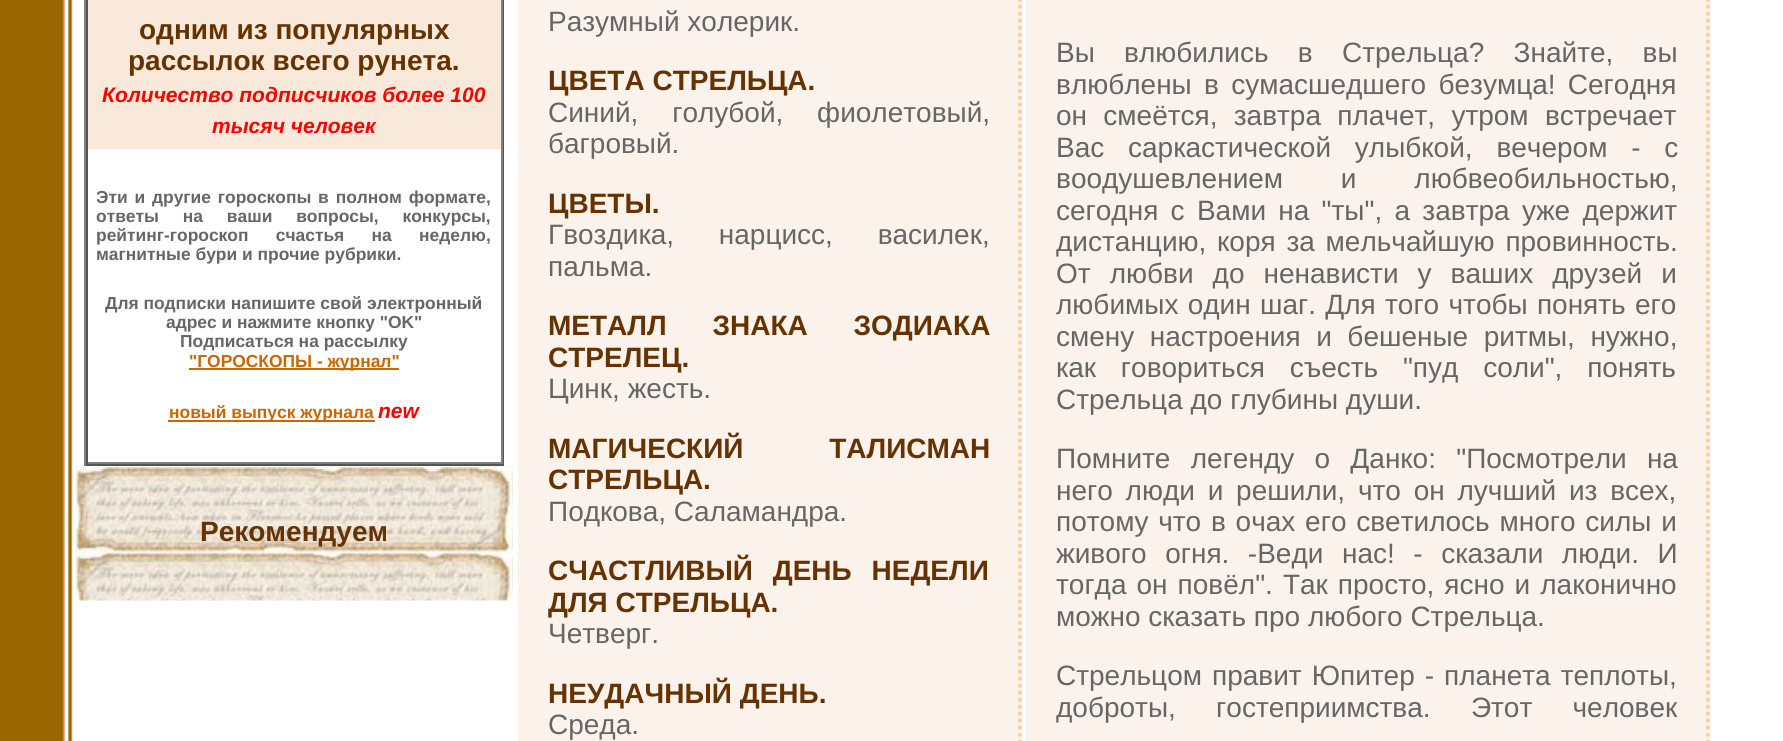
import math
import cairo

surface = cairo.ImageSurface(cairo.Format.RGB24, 1783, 741)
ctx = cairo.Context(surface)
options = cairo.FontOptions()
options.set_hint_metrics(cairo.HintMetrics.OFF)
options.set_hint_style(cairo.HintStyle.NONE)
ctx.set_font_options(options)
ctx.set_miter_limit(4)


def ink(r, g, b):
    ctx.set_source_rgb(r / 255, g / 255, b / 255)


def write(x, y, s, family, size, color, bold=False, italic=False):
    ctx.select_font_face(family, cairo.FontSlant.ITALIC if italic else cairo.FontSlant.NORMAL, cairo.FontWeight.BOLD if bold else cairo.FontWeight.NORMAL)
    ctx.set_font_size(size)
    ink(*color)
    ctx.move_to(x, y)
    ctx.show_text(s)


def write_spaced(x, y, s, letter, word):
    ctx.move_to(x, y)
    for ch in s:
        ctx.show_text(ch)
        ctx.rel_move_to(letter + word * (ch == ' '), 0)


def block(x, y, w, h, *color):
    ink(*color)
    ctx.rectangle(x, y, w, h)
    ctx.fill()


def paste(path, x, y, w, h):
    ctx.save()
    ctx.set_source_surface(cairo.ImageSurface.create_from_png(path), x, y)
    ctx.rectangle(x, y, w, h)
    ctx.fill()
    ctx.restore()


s1 = dict(family="Liberation Sans", size=28, color=(102, 51, 0), bold=True)
s2 = dict(family="Liberation Sans", size=21, color=(255, 0, 0), bold=True, italic=True)
s3 = dict(family="Liberation Sans", size=17.4, color=(102, 102, 102), bold=True)
s4 = dict(family="Liberation Sans", size=17.4, color=(204, 102, 0), bold=True)
s5 = dict(family="Liberation Sans", size=28, color=(102, 102, 102))

ink(255, 255, 255)
ctx.paint()
paste("pic1.png", 0, 0, 73, 741)
paste("pic2.png", 75, 465, 438, 136)
block(503, 0, 1, 466, 85, 85, 85)
block(84, 464, 420, 2, 85, 85, 85)
block(84, 0, 2, 466, 128, 128, 128)
block(501, 0, 2, 464, 128, 128, 128)
block(86, 462, 416, 2, 128, 128, 128)
block(86, 0, 2, 464, 85, 85, 85)
block(88, 0, 413, 149, 248, 233, 218)
write(139, 39, "одним из популярных", **s1)
write(128, 70, "рассылок всего рунета.", **s1)
write(102, 102, "Количество подписчиков более 100", **s2)
write(212, 133, "тысяч человек", **s2)
ctx.select_font_face("Liberation Sans", cairo.FontSlant.NORMAL, cairo.FontWeight.BOLD)
ctx.set_font_size(17.4)
ink(102, 102, 102)
write_spaced(96, 203, "Эти и другие гороскопы в полном формате,", 0, 2)
write_spaced(96, 222, "ответы на ваши вопросы, конкурсы,", 0, 19)
write_spaced(96, 241, "рейтинг-гороскоп счастья на неделю,", 0, 22.5)
write(96, 260, "магнитные бури и прочие рубрики.", **s3)
write(105, 309, "Для подписки напишите свой электронный", **s3)
write(166, 328, "адрес и нажмите кнопку \"OK\"", **s3)
write(180, 347, "Подписаться на рассылку", **s3)
block(189, 368, 210, 2, 204, 102, 0)
write(189, 367, "\"ГОРОСКОПЫ - журнал\"", **s4)
block(168, 420, 207, 2, 204, 102, 0)
write(169, 418, "новый выпуск журнала", **s4)
write(378, 418, "new", **s2)
write(200, 541, "Рекомендуем", **s1)
block(518, 0, 504, 741, 251, 243, 235)
ctx.new_path()
ctx.move_to(1020, -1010)
ctx.line_to(1020, 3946)
ink(255, 204, 153)
ctx.set_line_width(3.5)
ctx.set_dash([3.5, 3.5])
ctx.stroke()
write(548, 31, "Разумный холерик.", **s5)
write(548, 90, "ЦВЕТА СТРЕЛЬЦА.", **s1)
ctx.select_font_face("Liberation Sans")
ink(102, 102, 102)
write_spaced(548, 122, "Синий, голубой, фиолетовый,", 0, 26)
write(548, 153, "багровый.", **s5)
write(548, 213, "ЦВЕТЫ.", **s1)
ctx.select_font_face("Liberation Sans")
ink(102, 102, 102)
write_spaced(548, 244, "Гвоздика, нарцисс, василек,", 0, 37)
write(548, 276, "пальма.", **s5)
ctx.select_font_face("Liberation Sans", cairo.FontSlant.NORMAL, cairo.FontWeight.BOLD)
ink(102, 51, 0)
write_spaced(548, 335, "МЕТАЛЛ ЗНАКА ЗОДИАКА", 0, 38)
write(548, 367, "СТРЕЛЕЦ.", **s1)
write(548, 398, "Цинк, жесть.", **s5)
ctx.select_font_face("Liberation Sans", cairo.FontSlant.NORMAL, cairo.FontWeight.BOLD)
ink(102, 51, 0)
write_spaced(548, 458, "МАГИЧЕСКИЙ ТАЛИСМАН", 0, 78)
write(548, 489, "СТРЕЛЬЦА.", **s1)
write(548, 521, "Подкова, Саламандра.", **s5)
ctx.select_font_face("Liberation Sans", cairo.FontSlant.NORMAL, cairo.FontWeight.BOLD)
ink(102, 51, 0)
write_spaced(548, 580, "СЧАСТЛИВЫЙ ДЕНЬ НЕДЕЛИ", 0, 12)
write(548, 612, "ДЛЯ СТРЕЛЬЦА.", **s1)
write(548, 643, "Четверг.", **s5)
write(548, 703, "НЕУДАЧНЫЙ ДЕНЬ.", **s1)
write(548, 734, "Среда.", **s5)
block(1026, 0, 684, 741, 251, 243, 235)
ctx.new_path()
ctx.move_to(1708, -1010)
ctx.line_to(1708, 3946)
ink(255, 204, 153)
ctx.stroke()
ink(102, 102, 102)
write_spaced(1056, 62, "Вы влюбились в Стрельца? Знайте, вы", 0, 21.5)
write_spaced(1056, 94, "влюблены в сумасшедшего безумца! Сегодня", 0, 4.5)
write_spaced(1056, 125, "он смеётся, завтра плачет, утром встречает", 0, 8.5)
write_spaced(1056, 157, "Вас саркастической улыбкой, вечером - с", 0, 16)
write_spaced(1056, 188, "воодушевлением и любвеобильностью,", 0, 50)
write_spaced(1056, 220, "сегодня с Вами на \"ты\", а завтра уже держит", 0, 4.5)
write_spaced(1056, 251, "дистанцию, коря за мельчайшую провинность.", 0, 3)
write_spaced(1056, 283, "От любви до ненависти у ваших друзей и", 0, 11.25)
write_spaced(1056, 314, "любимых один шаг. Для того чтобы понять его", 0, 1.5)
write_spaced(1056, 346, "смену настроения и бешеные ритмы, нужно,", 0, 7.75)
write_spaced(1056, 377, "как говориться съесть \"пуд соли\", понять", 0, 17)
write(1056, 409, "Стрельца до глубины души.", **s5)
write_spaced(1056, 468, "Помните легенду о Данко: \"Посмотрели на", 0, 12.5)
write_spaced(1056, 500, "него люди и решили, что он лучший из всех,", 0, 5)
write_spaced(1056, 531, "потому что в очах его светилось много силы и", 0, 2)
write_spaced(1056, 563, "живого огня. -Веди нас! - сказали люди. И", 0, 10.75)
write_spaced(1056, 594, "тогда он повёл\". Так просто, ясно и лаконично", 0, 2.25)
write(1056, 626, "можно сказать про любого Стрельца.", **s5)
write_spaced(1056, 685, "Стрельцом правит Юпитер - планета теплоты,", 0, 2.25)
write_spaced(1056, 717, "доброты, гостеприимства. Этот человек", 0, 32.5)
surface.write_to_png("screenshot.png")
